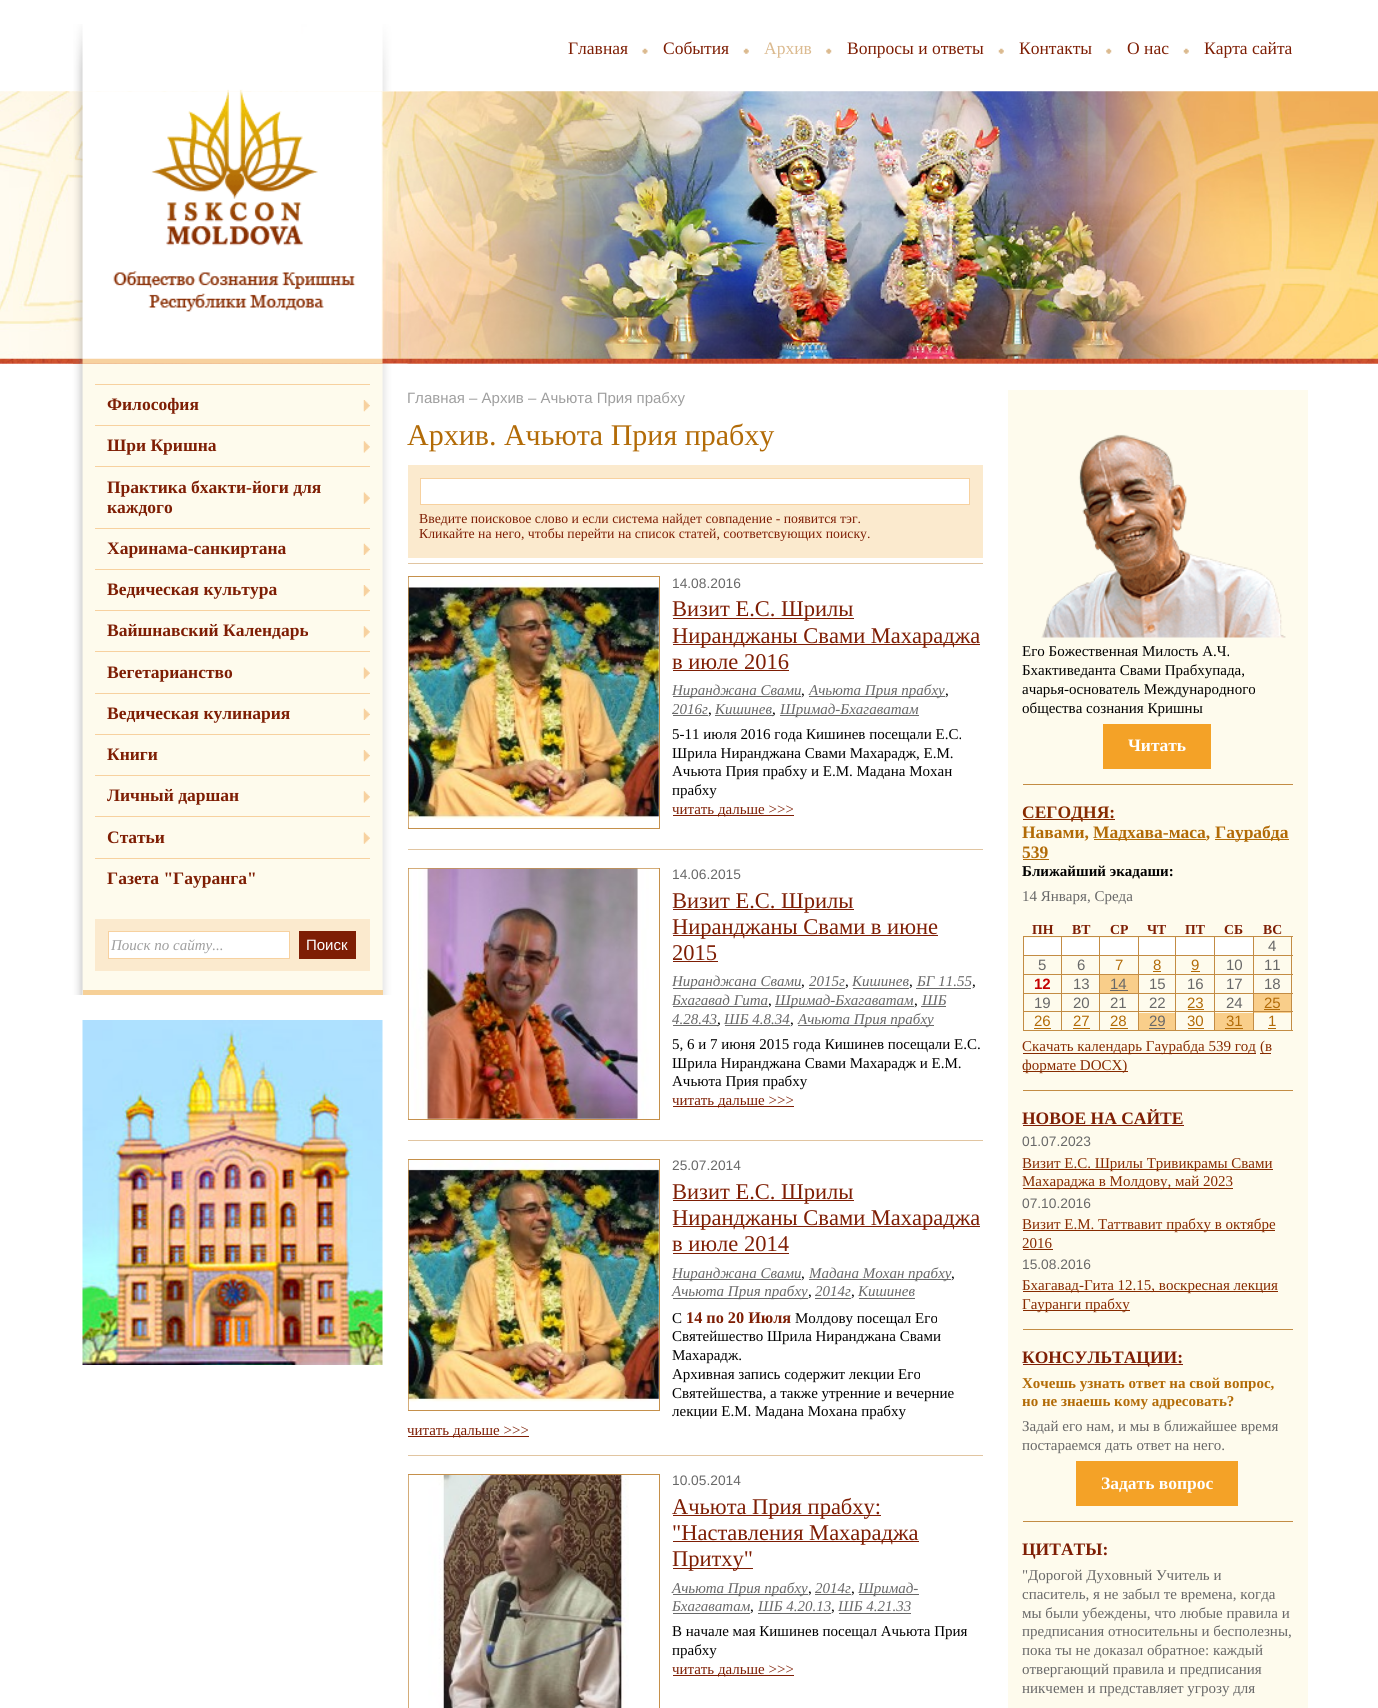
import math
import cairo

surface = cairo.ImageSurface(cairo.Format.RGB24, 1378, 1708)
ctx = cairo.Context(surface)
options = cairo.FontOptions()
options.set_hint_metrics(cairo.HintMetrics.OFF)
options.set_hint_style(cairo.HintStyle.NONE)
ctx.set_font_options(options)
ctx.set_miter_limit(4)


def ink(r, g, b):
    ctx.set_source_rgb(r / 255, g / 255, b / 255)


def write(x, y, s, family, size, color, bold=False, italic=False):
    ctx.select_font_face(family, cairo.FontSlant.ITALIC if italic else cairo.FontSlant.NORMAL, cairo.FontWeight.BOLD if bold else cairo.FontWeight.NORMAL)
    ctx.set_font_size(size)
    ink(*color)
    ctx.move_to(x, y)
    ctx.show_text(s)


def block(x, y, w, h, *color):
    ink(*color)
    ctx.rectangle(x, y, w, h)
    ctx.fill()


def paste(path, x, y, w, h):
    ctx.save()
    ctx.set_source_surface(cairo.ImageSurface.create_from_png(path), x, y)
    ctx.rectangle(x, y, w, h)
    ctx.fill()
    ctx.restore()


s1 = dict(family="Liberation Serif", size=17.5, color=(126, 30, 4))
s2 = dict(family="Liberation Serif", size=17.5, color=(219, 186, 143))
s3 = dict(family="Liberation Serif", size=17.5, color=(126, 30, 4), bold=True)
s4 = dict(family="Liberation Serif", size=15, color=(159, 159, 159), italic=True)
s5 = dict(family="Liberation Sans", size=15, color=(255, 255, 255))
s6 = dict(family="Liberation Sans", size=15, color=(159, 159, 159))
s7 = dict(family="Liberation Serif", size=30, color=(178, 107, 7))
s8 = dict(family="Liberation Serif", size=13.75, color=(126, 30, 4))
s9 = dict(family="Liberation Sans", size=13.75, color=(104, 104, 104))
s10 = dict(family="Liberation Serif", size=22.5, color=(126, 30, 4))
s11 = dict(family="Liberation Serif", size=15, color=(104, 104, 104), italic=True)
s12 = dict(family="Liberation Serif", size=15, color=(0, 0, 0))
s13 = dict(family="Liberation Serif", size=15, color=(126, 30, 4))
s14 = dict(family="Liberation Serif", size=16.25, color=(126, 30, 4), bold=True)
s15 = dict(family="Liberation Serif", size=17.5, color=(255, 255, 255), bold=True)
s16 = dict(family="Liberation Serif", size=17.5, color=(135, 43, 0), bold=True)
s17 = dict(family="Liberation Serif", size=17.5, color=(178, 107, 7), bold=True)
s18 = dict(family="Liberation Serif", size=15, color=(0, 0, 0), bold=True)
s19 = dict(family="Liberation Serif", size=15, color=(104, 104, 104))
s20 = dict(family="Liberation Serif", size=13.75, color=(126, 30, 4), bold=True)
s21 = dict(family="Liberation Sans", size=15, color=(104, 104, 104))
s22 = dict(family="Liberation Sans", size=15, color=(178, 107, 7))
s23 = dict(family="Liberation Sans", size=15, color=(196, 0, 0), bold=True)
s24 = dict(family="Liberation Serif", size=15, color=(135, 43, 0))
s25 = dict(family="Liberation Serif", size=15, color=(178, 107, 7), bold=True)

ink(255, 255, 255)
ctx.paint()
paste("pic6.png", 0, 91, 1378, 273)
paste("pic1.png", 73, 24, 347, 68)
write(568, 54, "Главная", **s1)
paste("pic2.png", 642, 48, 6, 6)
write(663, 54, "События", **s1)
paste("pic3.png", 743, 48, 6, 6)
write(764, 54, "Архив", **s2)
paste("pic4.png", 826, 48, 6, 6)
write(847, 54, "Вопросы и ответы", **s1)
paste("pic3.png", 998, 48, 6, 6)
write(1019, 54, "Контакты", **s1)
paste("pic4.png", 1106, 48, 6, 6)
write(1127, 54, "О нас", **s1)
paste("pic5.png", 1183, 48, 6, 6)
write(1204, 54, "Карта сайта", **s1)
paste("pic8.png", 72, 363, 336, 632)
paste("pic7.png", 72, 91, 311, 273)
block(83, 990, 300, 5, 246, 208, 151)
block(95, 384, 275, 1, 247, 209, 159)
paste("pic9.png", 363, 400, 7, 12)
write(107, 410, "Философия", **s3)
block(95, 425, 275, 1, 247, 209, 159)
paste("pic10.png", 363, 441, 7, 12)
write(107, 451, "Шри Кришна", **s3)
block(95, 466, 275, 1, 247, 209, 159)
paste("pic11.png", 363, 492, 7, 12)
write(107, 493, "Практика бхакти-йоги для", **s3)
write(107, 513, "каждого", **s3)
block(95, 528, 275, 1, 247, 209, 159)
paste("pic12.png", 363, 543, 7, 12)
write(107, 554, "Харинама-санкиртана", **s3)
block(95, 569, 275, 1, 247, 209, 159)
paste("pic13.png", 363, 585, 7, 12)
write(107, 595, "Ведическая культура", **s3)
block(95, 610, 275, 1, 247, 209, 159)
paste("pic10.png", 363, 626, 7, 12)
write(107, 636, "Вайшнавский Календарь", **s3)
block(95, 651, 275, 1, 247, 209, 159)
paste("pic11.png", 363, 667, 7, 12)
write(107, 678, "Вегетарианство", **s3)
block(95, 693, 275, 1, 247, 209, 159)
paste("pic12.png", 363, 708, 7, 12)
write(107, 719, "Ведическая кулинария", **s3)
block(95, 734, 275, 1, 247, 209, 159)
paste("pic9.png", 363, 750, 7, 12)
write(107, 760, "Книги", **s3)
block(95, 775, 275, 1, 247, 209, 159)
paste("pic10.png", 363, 791, 7, 12)
write(107, 801, "Личный даршан", **s3)
block(95, 816, 275, 1, 247, 209, 159)
paste("pic11.png", 363, 832, 7, 12)
write(107, 843, "Статьи", **s3)
block(95, 858, 275, 1, 247, 209, 159)
write(107, 884, "Газета \"Гауранга\"", **s3)
block(95, 919, 275, 52, 251, 234, 206)
ink(255, 255, 255)
ctx.rectangle(108.5, 931.5, 181, 27)
ctx.fill_preserve()
ink(247, 209, 159)
ctx.set_line_width(1)
ctx.stroke()
write(111, 950, "Поиск по сайту...", **s4)
block(299, 931, 57, 28, 126, 30, 4)
write(306, 950, "Поиск", **s5)
paste("pic14.png", 82, 1020, 301, 345)
write(407, 403, "Главная – Архив – Ачьюта Прия прабху", **s6)
write(407, 445, "Архив. Ачьюта Прия прабху", **s7)
block(408, 465, 575, 93, 251, 234, 206)
ink(255, 255, 255)
ctx.rectangle(420.5, 478.5, 549, 26)
ctx.fill_preserve()
ink(247, 209, 159)
ctx.stroke()
write(419, 523, "Введите поисковое слово и если система найдет совпадение - появится тэг.", **s8)
write(419, 538, "Кликайте на него, чтобы перейти на список статей, соответсвующих поиску.", **s8)
block(408, 563, 575, 1, 225, 197, 161)
ctx.rectangle(408.5, 576.5, 251, 252)
ink(197, 144, 75)
ctx.stroke()
paste("pic15.png", 408, 577, 251, 251)
write(672, 588, "14.08.2016", **s9)
block(673, 618, 181, 1, 126, 30, 4)
write(672, 616, "Визит Е.С. Шрилы", **s10)
block(673, 644, 307, 1, 126, 30, 4)
write(672, 643, "Ниранджаны Свами Махараджа", **s10)
write(672, 669, "в июле 2016", **s10)
block(673, 670, 116, 1, 126, 30, 4)
block(673, 696, 128, 1, 104, 104, 104)
write(672, 695, "Ниранджана Свами", **s11)
write(801, 695, ",", **s12)
block(809, 696, 136, 1, 104, 104, 104)
write(809, 695, "Ачьюта Прия прабху", **s11)
write(945, 695, ",", **s12)
write(672, 714, "2016г", **s11)
block(673, 715, 35, 1, 104, 104, 104)
write(708, 714, ",", **s12)
write(715, 714, "Кишинев", **s11)
block(715, 715, 58, 1, 104, 104, 104)
write(772, 714, ",", **s12)
block(780, 715, 139, 1, 104, 104, 104)
write(780, 714, "Шримад-Бхагаватам", **s11)
write(672, 739, "5-11 июля 2016 года Кишинев посещали Е.С.", **s12)
write(672, 758, "Шрила Ниранджана Свами Махарадж, Е.М.", **s12)
write(672, 776, "Ачьюта Прия прабху и Е.М. Мадана Мохан", **s12)
write(672, 795, "прабху", **s12)
block(673, 815, 121, 1, 126, 30, 4)
write(672, 814, "читать дальше >>>", **s13)
block(408, 849, 575, 1, 225, 197, 161)
ctx.rectangle(408.5, 868.5, 251, 251)
ink(197, 144, 75)
ctx.stroke()
paste("pic16.png", 408, 868, 251, 251)
write(672, 879, "14.06.2015", **s9)
block(673, 909, 181, 1, 126, 30, 4)
write(672, 908, "Визит Е.С. Шрилы", **s10)
block(673, 935, 265, 1, 126, 30, 4)
write(672, 934, "Ниранджаны Свами в июне", **s10)
write(672, 960, "2015", **s10)
block(673, 961, 45, 1, 126, 30, 4)
block(673, 988, 128, 1, 104, 104, 104)
write(672, 986, "Ниранджана Свами", **s11)
write(801, 986, ",", **s12)
write(809, 986, "2015г", **s11)
block(809, 988, 36, 1, 104, 104, 104)
write(845, 986, ",", **s12)
write(852, 986, "Кишинев", **s11)
block(853, 988, 56, 1, 104, 104, 104)
write(909, 986, ",", **s12)
write(917, 986, "БГ 11.55", **s11)
block(916, 988, 55, 1, 104, 104, 104)
write(972, 986, ",", **s12)
write(672, 1005, "Бхагавад Гита", **s11)
block(673, 1006, 95, 1, 104, 104, 104)
block(775, 1006, 139, 1, 104, 104, 104)
write(775, 1005, "Шримад-Бхагаватам", **s11)
write(922, 1005, "ШБ", **s11)
block(921, 1006, 25, 1, 104, 104, 104)
write(768, 1005, ",", **s12)
write(914, 1005, ",", **s12)
write(672, 1024, "4.28.43", **s11)
block(673, 1025, 45, 1, 104, 104, 104)
write(717, 1024, ",", **s12)
write(724, 1024, "ШБ 4.8.34", **s11)
block(725, 1025, 65, 1, 104, 104, 104)
write(790, 1024, ",", **s12)
block(798, 1025, 136, 1, 104, 104, 104)
write(798, 1024, "Ачьюта Прия прабху", **s11)
write(672, 1049, "5, 6 и 7 июня 2015 года Кишинев посещали Е.С.", **s12)
write(672, 1068, "Шрила Ниранджана Свами Махарадж и Е.М.", **s12)
write(672, 1086, "Ачьюта Прия прабху", **s12)
block(673, 1106, 121, 1, 126, 30, 4)
write(672, 1105, "читать дальше >>>", **s13)
block(408, 1140, 575, 1, 225, 197, 161)
ctx.rectangle(408.5, 1159.5, 251, 251)
ink(197, 144, 75)
ctx.stroke()
paste("pic17.png", 408, 1160, 251, 250)
write(672, 1170, "25.07.2014", **s9)
block(673, 1200, 181, 1, 126, 30, 4)
write(672, 1199, "Визит Е.С. Шрилы", **s10)
block(673, 1226, 307, 1, 126, 30, 4)
write(672, 1225, "Ниранджаны Свами Махараджа", **s10)
write(672, 1251, "в июле 2014", **s10)
block(673, 1253, 116, 1, 126, 30, 4)
block(673, 1279, 128, 1, 104, 104, 104)
write(672, 1278, "Ниранджана Свами", **s11)
write(801, 1278, ",", **s12)
block(809, 1279, 142, 1, 104, 104, 104)
write(809, 1278, "Мадана Мохан прабху", **s11)
write(951, 1278, ",", **s12)
block(673, 1298, 135, 1, 104, 104, 104)
write(672, 1296, "Ачьюта Прия прабху", **s11)
write(808, 1296, ",", **s12)
write(815, 1296, "2014г", **s11)
block(815, 1298, 36, 1, 104, 104, 104)
write(851, 1296, ",", **s12)
write(858, 1296, "Кишинев", **s11)
block(859, 1298, 56, 1, 104, 104, 104)
write(672, 1323, "С", **s12)
write(686, 1323, "14 по 20 Июля", **s14)
write(795, 1323, "Молдову посещал Его", **s12)
write(672, 1341, "Святейшество Шрила Ниранджана Свами", **s12)
write(672, 1360, "Махарадж.", **s12)
write(672, 1379, "Архивная запись содержит лекции Его", **s12)
write(672, 1398, "Святейшества, а также утренние и вечерние", **s12)
write(672, 1416, "лекции Е.М. Мадана Мохана прабху", **s12)
block(408, 1436, 121, 1, 126, 30, 4)
write(407, 1435, "читать дальше >>>", **s13)
block(408, 1455, 575, 1, 225, 197, 161)
ctx.rectangle(408.5, 1474.5, 251, 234)
ink(197, 144, 75)
ctx.stroke()
paste("pic18.png", 408, 1475, 221, 233)
write(672, 1485, "10.05.2014", **s9)
block(673, 1515, 208, 1, 126, 30, 4)
write(672, 1514, "Ачьюта Прия прабху:", **s10)
block(673, 1541, 246, 1, 126, 30, 4)
write(672, 1540, "\"Наставления Махараджа", **s10)
block(673, 1568, 80, 1, 126, 30, 4)
write(672, 1566, "Притху\"", **s10)
block(673, 1594, 135, 1, 104, 104, 104)
write(672, 1593, "Ачьюта Прия прабху", **s11)
write(808, 1593, ",", **s12)
write(815, 1593, "2014г", **s11)
block(815, 1594, 36, 1, 104, 104, 104)
write(851, 1593, ",", **s12)
block(859, 1594, 60, 1, 104, 104, 104)
write(858, 1593, "Шримад-", **s11)
write(672, 1611, "Бхагаватам", **s11)
block(673, 1613, 77, 1, 104, 104, 104)
write(750, 1611, ",", **s12)
write(758, 1611, "ШБ 4.20.13", **s11)
block(758, 1613, 73, 1, 104, 104, 104)
write(831, 1611, ",", **s12)
write(838, 1611, "ШБ 4.21.33", **s11)
block(839, 1613, 72, 1, 104, 104, 104)
write(672, 1636, "В начале мая Кишинев посещал Ачьюта Прия", **s12)
write(672, 1655, "прабху", **s12)
block(673, 1675, 121, 1, 126, 30, 4)
write(672, 1674, "читать дальше >>>", **s13)
block(1008, 390, 300, 1318, 254, 251, 237)
paste("pic19.png", 1041, 434, 245, 204)
write(1022, 656, "Его Божественная Милость А.Ч.", **s12)
write(1022, 675, "Бхактиведанта Свами Прабхупада,", **s12)
write(1022, 694, "ачарья-основатель Международного", **s12)
write(1022, 713, "общества сознания Кришны", **s12)
block(1103, 724, 108, 45, 244, 162, 39)
write(1128, 751, "Читать", **s15)
block(1023, 784, 270, 1, 195, 140, 68)
block(1023, 819, 92, 1, 135, 43, 0)
write(1022, 818, "СЕГОДНЯ:", **s16)
write(1022, 838, "Навами,", **s17)
block(1094, 839, 112, 1, 178, 107, 7)
write(1093, 838, "Мадхава-маса,", **s17)
block(1215, 839, 74, 1, 178, 107, 7)
write(1215, 838, "Гаурабда", **s17)
write(1022, 858, "539", **s17)
block(1023, 859, 26, 1, 178, 107, 7)
write(1022, 876, "Ближайший экадаши:", **s18)
write(1022, 901, "14 Января, Среда", **s19)
write(1032, 934, "ПН", **s20)
write(1072, 934, "ВТ", **s20)
write(1110, 934, "СР", **s20)
write(1147, 934, "ЧТ", **s20)
write(1185, 934, "ПТ", **s20)
write(1224, 934, "СБ", **s20)
write(1263, 934, "ВС", **s20)
block(1024, 938, 75, 17, 255, 255, 255)
block(1253, 936, 40, 1, 195, 140, 68)
block(1253, 955, 40, 1, 195, 140, 68)
block(1253, 974, 40, 1, 195, 140, 68)
block(1253, 993, 40, 1, 195, 140, 68)
block(1254, 994, 37, 19, 249, 206, 138)
block(1253, 1011, 40, 1, 195, 140, 68)
block(1291, 1011, 1, 20, 195, 140, 68)
block(1253, 1030, 40, 1, 195, 140, 68)
block(1253, 1011, 1, 20, 195, 140, 68)
block(1214, 1011, 40, 1, 195, 140, 68)
block(1253, 993, 1, 20, 195, 140, 68)
block(1214, 993, 40, 1, 195, 140, 68)
block(1253, 974, 1, 20, 195, 140, 68)
block(1214, 974, 40, 1, 195, 140, 68)
block(1253, 955, 1, 20, 195, 140, 68)
block(1214, 955, 40, 1, 195, 140, 68)
block(1253, 936, 1, 20, 195, 140, 68)
block(1214, 936, 40, 1, 195, 140, 68)
block(1214, 1030, 40, 1, 195, 140, 68)
block(1214, 1011, 1, 20, 195, 140, 68)
block(1175, 1011, 40, 1, 195, 140, 68)
block(1214, 993, 1, 20, 195, 140, 68)
block(1175, 993, 40, 1, 195, 140, 68)
block(1214, 974, 1, 20, 195, 140, 68)
block(1175, 974, 40, 1, 195, 140, 68)
block(1214, 955, 1, 20, 195, 140, 68)
block(1175, 955, 40, 1, 195, 140, 68)
block(1214, 936, 1, 20, 195, 140, 68)
block(1175, 936, 40, 1, 195, 140, 68)
block(1175, 1030, 40, 1, 195, 140, 68)
block(1175, 1011, 1, 20, 195, 140, 68)
block(1138, 1011, 38, 1, 195, 140, 68)
block(1175, 993, 1, 20, 195, 140, 68)
block(1138, 993, 38, 1, 195, 140, 68)
block(1175, 974, 1, 20, 195, 140, 68)
block(1138, 974, 38, 1, 195, 140, 68)
block(1175, 955, 1, 20, 195, 140, 68)
block(1138, 955, 38, 1, 195, 140, 68)
block(1175, 936, 1, 20, 195, 140, 68)
block(1138, 936, 38, 1, 195, 140, 68)
block(1138, 1030, 38, 1, 195, 140, 68)
block(1138, 1011, 1, 20, 195, 140, 68)
block(1099, 1011, 40, 1, 195, 140, 68)
block(1138, 993, 1, 20, 195, 140, 68)
block(1099, 993, 40, 1, 195, 140, 68)
block(1138, 974, 1, 20, 195, 140, 68)
block(1099, 974, 40, 1, 195, 140, 68)
block(1138, 955, 1, 20, 195, 140, 68)
block(1099, 955, 40, 1, 195, 140, 68)
block(1138, 936, 1, 20, 195, 140, 68)
block(1099, 936, 40, 1, 195, 140, 68)
block(1099, 1030, 40, 1, 195, 140, 68)
block(1099, 1011, 1, 20, 195, 140, 68)
block(1061, 1011, 39, 1, 195, 140, 68)
block(1099, 993, 1, 20, 195, 140, 68)
block(1061, 993, 39, 1, 195, 140, 68)
block(1099, 974, 1, 20, 195, 140, 68)
block(1061, 974, 39, 1, 195, 140, 68)
block(1099, 955, 1, 20, 195, 140, 68)
block(1061, 955, 39, 1, 195, 140, 68)
block(1099, 936, 1, 20, 195, 140, 68)
block(1061, 936, 39, 1, 195, 140, 68)
block(1061, 1030, 39, 1, 195, 140, 68)
block(1061, 1011, 1, 20, 195, 140, 68)
block(1023, 1011, 40, 1, 195, 140, 68)
block(1061, 993, 1, 20, 195, 140, 68)
block(1023, 993, 40, 1, 195, 140, 68)
block(1061, 974, 1, 20, 195, 140, 68)
block(1023, 974, 40, 1, 195, 140, 68)
block(1061, 955, 1, 20, 195, 140, 68)
block(1023, 955, 40, 1, 195, 140, 68)
block(1061, 936, 1, 20, 195, 140, 68)
block(1023, 936, 40, 1, 195, 140, 68)
block(1023, 1030, 40, 1, 195, 140, 68)
block(1023, 1011, 1, 20, 195, 140, 68)
block(1023, 993, 1, 20, 195, 140, 68)
block(1023, 974, 1, 20, 195, 140, 68)
block(1023, 955, 1, 20, 195, 140, 68)
block(1023, 936, 1, 20, 195, 140, 68)
block(1100, 938, 38, 17, 255, 255, 255)
block(1139, 938, 36, 17, 255, 255, 255)
block(1176, 938, 38, 17, 255, 255, 255)
block(1215, 938, 38, 17, 255, 255, 255)
block(1291, 993, 1, 20, 195, 140, 68)
block(1291, 974, 1, 20, 195, 140, 68)
block(1291, 955, 1, 20, 195, 140, 68)
block(1291, 936, 1, 20, 195, 140, 68)
write(1268, 951, "4", **s21)
write(1038, 970, "5", **s21)
write(1077, 970, "6", **s21)
write(1115, 970, "7", **s22)
write(1153, 970, "8", **s22)
block(1153, 971, 8, 1, 178, 107, 7)
write(1191, 970, "9", **s22)
block(1191, 971, 9, 1, 178, 107, 7)
write(1226, 970, "10", **s21)
write(1264, 970, "11", **s21)
write(1034, 989, "12", **s23)
write(1073, 989, "13", **s21)
block(1100, 975, 38, 18, 249, 206, 138)
write(1110, 989, "14", **s21)
block(1110, 990, 18, 1, 104, 104, 104)
write(1149, 989, "15", **s21)
write(1187, 989, "16", **s21)
write(1226, 989, "17", **s21)
write(1264, 989, "18", **s21)
write(1034, 1008, "19", **s21)
write(1073, 1008, "20", **s21)
write(1110, 1008, "21", **s21)
write(1149, 1008, "22", **s21)
write(1187, 1008, "23", **s22)
block(1188, 1009, 16, 1, 178, 107, 7)
write(1226, 1008, "24", **s21)
write(1264, 1008, "25", **s22)
block(1264, 1009, 16, 1, 178, 107, 7)
write(1034, 1026, "26", **s22)
block(1034, 1028, 17, 1, 178, 107, 7)
write(1073, 1026, "27", **s22)
block(1073, 1028, 17, 1, 178, 107, 7)
write(1110, 1026, "28", **s22)
block(1110, 1028, 18, 1, 178, 107, 7)
block(1139, 1013, 36, 17, 249, 206, 138)
write(1149, 1026, "29", **s21)
block(1149, 1028, 16, 1, 104, 104, 104)
write(1187, 1026, "30", **s22)
block(1188, 1028, 16, 1, 178, 107, 7)
block(1215, 1013, 38, 17, 249, 206, 138)
write(1226, 1026, "31", **s22)
block(1225, 1028, 18, 1, 178, 107, 7)
write(1268, 1026, "1", **s22)
block(1268, 1028, 8, 1, 178, 107, 7)
block(1023, 1053, 233, 1, 135, 43, 0)
write(1022, 1051, "Скачать календарь Гаурабда 539 год", **s24)
block(1260, 1053, 11, 1, 135, 43, 0)
write(1260, 1051, "(в", **s24)
block(1023, 1071, 105, 1, 135, 43, 0)
write(1022, 1070, "формате DOCX)", **s24)
block(1023, 1090, 270, 1, 195, 140, 68)
write(1022, 1124, "НОВОЕ НА САЙТЕ", **s3)
block(1023, 1125, 161, 1, 126, 30, 4)
write(1022, 1146, "01.07.2023", **s9)
block(1023, 1169, 250, 1, 135, 43, 0)
write(1022, 1168, "Визит Е.С. Шрилы Тривикрамы Свами", **s24)
block(1023, 1188, 210, 1, 135, 43, 0)
write(1022, 1186, "Махараджа в Молдову, май 2023", **s24)
write(1022, 1208, "07.10.2016", **s9)
block(1023, 1230, 252, 1, 135, 43, 0)
write(1022, 1229, "Визит Е.М. Таттвавит прабху в октябре", **s24)
write(1022, 1248, "2016", **s24)
block(1023, 1249, 30, 1, 135, 43, 0)
write(1022, 1269, "15.08.2016", **s9)
block(1023, 1291, 255, 1, 135, 43, 0)
write(1022, 1290, "Бхагавад-Гита 12.15, воскресная лекция", **s24)
block(1023, 1310, 107, 1, 135, 43, 0)
write(1022, 1309, "Гауранги прабху", **s24)
block(1023, 1329, 270, 1, 195, 140, 68)
block(1023, 1364, 160, 1, 126, 30, 4)
write(1022, 1363, "КОНСУЛЬТАЦИИ:", **s3)
write(1022, 1388, "Хочешь узнать ответ на свой вопрос,", **s25)
write(1022, 1406, "но не знаешь кому адресовать?", **s25)
write(1022, 1431, "Задай его нам, и мы в ближайшее время", **s19)
write(1022, 1450, "постараемся дать ответ на него.", **s19)
block(1076, 1461, 162, 45, 244, 162, 39)
write(1101, 1489, "Задать вопрос", **s15)
block(1023, 1521, 270, 1, 195, 140, 68)
write(1022, 1555, "ЦИТАТЫ:", **s3)
write(1022, 1580, "\"Дорогой Духовный Учитель и", **s19)
write(1022, 1599, "спаситель, я не забыл те времена, когда", **s19)
write(1022, 1618, "мы были убеждены, что любые правила и", **s19)
write(1022, 1636, "предписания относительны и бесполезны,", **s19)
write(1022, 1655, "пока ты не доказал обратное: каждый", **s19)
write(1022, 1674, "отвергающий правила и предписания", **s19)
write(1022, 1693, "никчемен и представляет угрозу для", **s19)
surface.write_to_png("screenshot.png")
